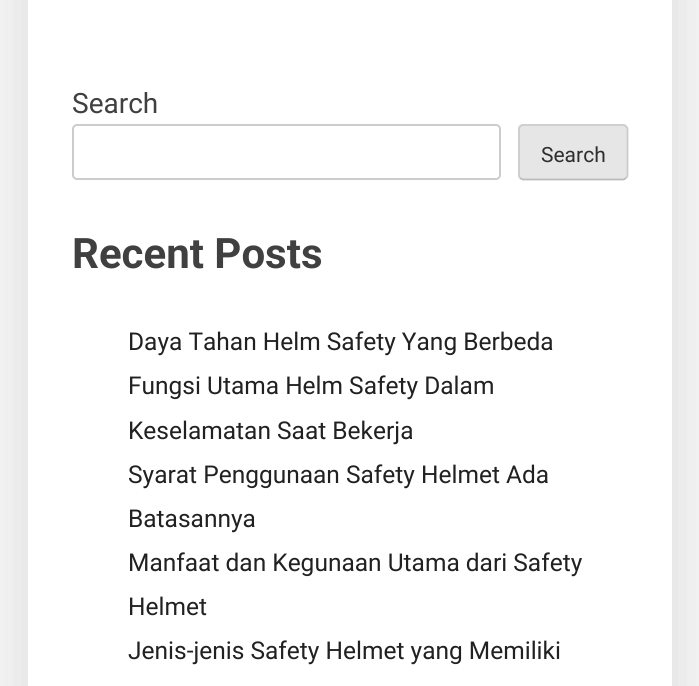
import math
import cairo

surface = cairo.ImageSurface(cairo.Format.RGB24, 699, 686)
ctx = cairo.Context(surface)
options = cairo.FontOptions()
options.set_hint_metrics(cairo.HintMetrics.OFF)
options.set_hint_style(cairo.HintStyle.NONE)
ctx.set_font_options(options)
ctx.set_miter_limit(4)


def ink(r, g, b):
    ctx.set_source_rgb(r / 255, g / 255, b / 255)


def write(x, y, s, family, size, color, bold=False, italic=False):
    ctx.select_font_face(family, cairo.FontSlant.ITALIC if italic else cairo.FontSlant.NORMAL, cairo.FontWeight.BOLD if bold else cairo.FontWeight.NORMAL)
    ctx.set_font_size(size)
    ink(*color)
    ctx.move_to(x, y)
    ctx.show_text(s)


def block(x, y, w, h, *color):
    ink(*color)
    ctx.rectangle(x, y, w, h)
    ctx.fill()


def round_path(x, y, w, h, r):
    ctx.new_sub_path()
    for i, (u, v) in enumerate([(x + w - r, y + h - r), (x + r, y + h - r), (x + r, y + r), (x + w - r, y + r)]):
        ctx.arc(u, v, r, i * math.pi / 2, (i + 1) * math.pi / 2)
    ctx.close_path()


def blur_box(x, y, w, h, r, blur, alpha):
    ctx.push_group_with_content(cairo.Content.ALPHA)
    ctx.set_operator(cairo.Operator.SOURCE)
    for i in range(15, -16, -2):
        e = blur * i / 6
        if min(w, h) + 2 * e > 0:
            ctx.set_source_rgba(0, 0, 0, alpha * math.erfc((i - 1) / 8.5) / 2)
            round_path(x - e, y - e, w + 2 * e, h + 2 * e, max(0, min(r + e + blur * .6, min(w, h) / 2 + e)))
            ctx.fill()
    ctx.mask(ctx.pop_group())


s1 = dict(family="Roboto", size=28, color=(64, 64, 64))
s2 = dict(family="Roboto", size=21, color=(46, 46, 46))
s3 = dict(family="Roboto", size=42, color=(64, 64, 64), bold=True)
s4 = dict(family="Roboto", size=24.5, color=(33, 33, 33))

ink(245, 245, 245)
ctx.paint()
ink(0, 0, 0)
blur_box(26, -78, 648, 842, 0, 26, 0.1)
block(28, 0, 644, 686, 255, 255, 255)
write(72, 113, "Search", **s1)
round_path(73, 125, 427, 54, 4)
ink(204, 204, 204)
ctx.stroke()
ink(230, 230, 230)
round_path(518, 124, 110, 56, 5)
ctx.fill()
ctx.new_path()
ctx.move_to(626, 178)
ctx.line_to(623.5, 179.5)
ctx.line_to(523, 179.5)
ctx.line_to(520, 178)
ink(187, 187, 187)
ctx.set_line_width(1.8)
ctx.stroke()
ctx.new_path()
ctx.move_to(520, 178)
ctx.curve_to(519.5, 177.5, 519, 176, 519, 175)
ctx.line_to(519, 129.5)
ctx.curve_to(519, 128.5, 519.5, 127, 520, 126.5)
ctx.curve_to(521, 125.5, 522, 125, 523, 125)
ctx.line_to(623, 125)
ctx.curve_to(624, 125, 625.5, 125.5, 626, 126.5)
ctx.curve_to(627, 127, 627.5, 128.5, 627.5, 129.5)
ctx.line_to(627.5, 175)
ctx.curve_to(627.5, 176, 627, 177.5, 626, 178)
ink(204, 204, 204)
ctx.stroke()
write(541, 162, "Search", **s2)
write(72, 268, "Recent Posts", **s3)
write(128, 350, "Daya Tahan Helm Safety Yang Berbeda", **s4)
write(128, 394, "Fungsi Utama Helm Safety Dalam", **s4)
write(128, 439, "Keselamatan Saat Bekerja", **s4)
write(128, 483, "Syarat Penggunaan Safety Helmet Ada", **s4)
write(128, 527, "Batasannya", **s4)
write(128, 571, "Manfaat dan Kegunaan Utama dari Safety", **s4)
write(128, 615, "Helmet", **s4)
write(128, 659, "Jenis-jenis Safety Helmet yang Memiliki", **s4)
surface.write_to_png("screenshot.png")
